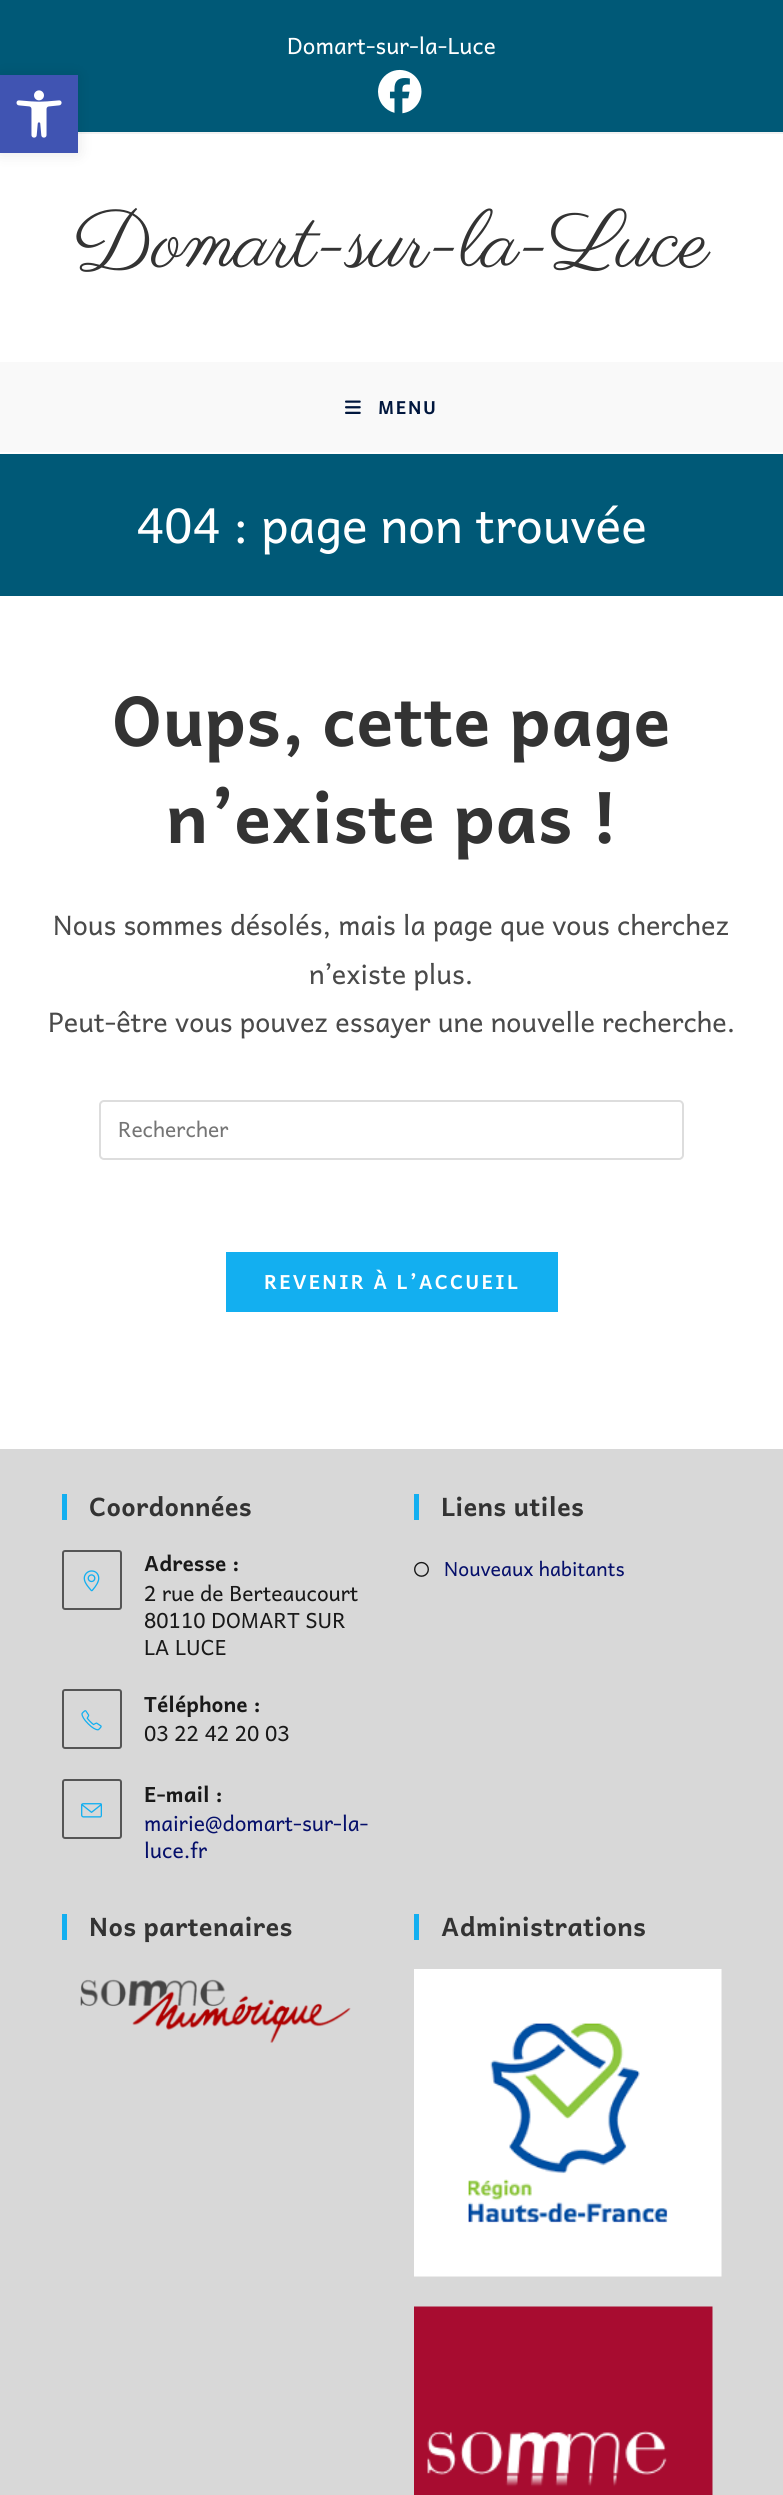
import math
import cairo

surface = cairo.ImageSurface(cairo.Format.RGB24, 783, 2495)
ctx = cairo.Context(surface)
options = cairo.FontOptions()
options.set_hint_metrics(cairo.HintMetrics.OFF)
options.set_hint_style(cairo.HintStyle.NONE)
ctx.set_font_options(options)
ctx.set_miter_limit(4)


def ink(r, g, b):
    ctx.set_source_rgb(r / 255, g / 255, b / 255)


def write(x, y, s, family, size, color, bold=False, italic=False):
    ctx.select_font_face(family, cairo.FontSlant.ITALIC if italic else cairo.FontSlant.NORMAL, cairo.FontWeight.BOLD if bold else cairo.FontWeight.NORMAL)
    ctx.set_font_size(size)
    ink(*color)
    ctx.move_to(x, y)
    ctx.show_text(s)


def write_spaced(x, y, s, letter, word):
    ctx.move_to(x, y)
    for ch in s:
        ctx.show_text(ch)
        ctx.rel_move_to(letter + word * (ch == ' '), 0)


def block(x, y, w, h, *color):
    ink(*color)
    ctx.rectangle(x, y, w, h)
    ctx.fill()


def round_path(x, y, w, h, r):
    ctx.new_sub_path()
    for i, (u, v) in enumerate([(x + w - r, y + h - r), (x + r, y + h - r), (x + r, y + r), (x + w - r, y + r)]):
        ctx.arc(u, v, r, i * math.pi / 2, (i + 1) * math.pi / 2)
    ctx.close_path()


def blur_box(x, y, w, h, r, blur, alpha):
    ctx.push_group_with_content(cairo.Content.ALPHA)
    ctx.set_operator(cairo.Operator.SOURCE)
    for i in range(15, -16, -2):
        e = blur * i / 6
        if min(w, h) + 2 * e > 0:
            ctx.set_source_rgba(0, 0, 0, alpha * math.erfc((i - 1) / 8.5) / 2)
            round_path(x - e, y - e, w + 2 * e, h + 2 * e, max(0, min(r + e + blur * .6, min(w, h) / 2 + e)))
            ctx.fill()
    ctx.mask(ctx.pop_group())


def paste(path, x, y, w, h):
    ctx.save()
    ctx.set_source_surface(cairo.ImageSurface.create_from_png(path), x, y)
    ctx.rectangle(x, y, w, h)
    ctx.fill()
    ctx.restore()


s1 = dict(family="Parisienne", size=81, color=(51, 51, 51))
s2 = dict(family="Andika", size=48, color=(255, 255, 255))
s3 = dict(family="Andika", size=69, color=(51, 51, 51), bold=True)
s4 = dict(family="Andika", size=27, color=(74, 74, 74))
s5 = dict(family="Andika", size=21, color=(117, 117, 117))
s6 = dict(family="Andika", size=21, color=(25, 25, 25), bold=True)
s7 = dict(family="Andika", size=21, color=(25, 25, 25))
s8 = dict(family="Andika", size=21, color=(6, 16, 107))
s9 = dict(family="Andika", size=19.5, color=(6, 16, 107))

ink(255, 255, 255)
ctx.paint()
block(0, 0, 783, 132, 0, 89, 119)
block(78, 132, 705, 2, 241, 241, 241)
ctx.select_font_face("Andika")
ctx.set_font_size(22.5)
ink(255, 255, 255)
write_spaced(287, 54, "Domart-sur-la-Luce", 0.1, 0)
paste("pic1.png", 378, 69, 44, 45)
write(74, 266, "Domart-sur-la-Luce", **s1)
block(0, 362, 783, 90, 249, 249, 249)
paste("pic2.png", 345, 400, 16, 14)
ctx.select_font_face("Andika", cairo.FontSlant.NORMAL, cairo.FontWeight.BOLD)
ctx.set_font_size(18)
ink(0, 22, 61)
write_spaced(378, 414, "MENU", 1.5, 0)
block(0, 454, 783, 142, 0, 89, 119)
write(136, 543, "404 : page non trouvée", **s2)
write(112, 746, "Oups, cette page", **s3)
write(166, 843, "n’existe pas !", **s3)
write(53, 935, "Nous sommes désolés, mais la page que vous cherchez", **s4)
write(309, 984, "n’existe plus.", **s4)
write(48, 1032, "Peut-être vous pouvez essayer une nouvelle recherche.", **s4)
round_path(100, 1101, 583, 58, 4)
ink(221, 221, 221)
ctx.stroke()
write(118, 1137, "Rechercher", **s5)
block(226, 1252, 332, 60, 19, 175, 240)
ctx.select_font_face("Andika", cairo.FontSlant.NORMAL, cairo.FontWeight.BOLD)
ctx.set_font_size(19.5)
ink(255, 255, 255)
write_spaced(264, 1289, "REVENIR À L’ACCUEIL", 2, 0)
block(0, 1449, 783, 1046, 216, 216, 216)
block(62, 1494, 5, 26, 19, 175, 240)
ctx.set_font_size(25.5)
ink(51, 51, 51)
write_spaced(89, 1516, "Coordonnées", 0.25, 0)
round_path(63, 1551, 58, 58, 2)
ink(85, 85, 85)
ctx.stroke()
paste("pic3.png", 83, 1570, 17, 22)
write(144, 1571, "Adresse :", **s6)
write(144, 1601, "2 rue de Berteaucourt", **s7)
write(144, 1628, "80110 DOMART SUR", **s7)
write(144, 1655, "LA LUCE", **s7)
round_path(63, 1690, 58, 58, 2)
ink(85, 85, 85)
ctx.stroke()
paste("pic4.png", 81, 1710, 21, 21)
write(144, 1712, "Téléphone :", **s6)
write(144, 1741, "03 22 42 20 03", **s7)
round_path(63, 1780, 58, 58, 2)
ink(85, 85, 85)
ctx.stroke()
paste("pic5.png", 81, 1803, 21, 15)
write(144, 1802, "E-mail :", **s6)
write(144, 1831, "mairie@domart-sur-la-", **s8)
write(144, 1858, "luce.fr", **s8)
block(414, 1494, 5, 26, 19, 175, 240)
ctx.select_font_face("Andika", cairo.FontSlant.NORMAL, cairo.FontWeight.BOLD)
ctx.set_font_size(25.5)
ink(51, 51, 51)
write_spaced(441, 1516, "Liens utiles", 0.25, 0)
paste("pic6.png", 414, 1561, 15, 16)
write(444, 1576, "Nouveaux habitants", **s9)
block(62, 1914, 5, 26, 19, 175, 240)
ctx.select_font_face("Andika", cairo.FontSlant.NORMAL, cairo.FontWeight.BOLD)
ctx.set_font_size(25.5)
ink(51, 51, 51)
write_spaced(89, 1936, "Nos partenaires", 0.25, 0)
paste("pic7.png", 80, 1979, 271, 64)
block(414, 1914, 5, 26, 19, 175, 240)
ink(51, 51, 51)
write_spaced(441, 1936, "Administrations", 0.25, 0)
paste("pic8.png", 414, 1969, 308, 308)
paste("pic9.png", 414, 2306, 299, 189)
ink(0, 0, 0)
blur_box(0, 75, 78, 78, 0, 7.5, 0.1)
block(0, 75, 78, 78, 64, 84, 178)
paste("pic10.png", 16, 90, 46, 48)
surface.write_to_png("screenshot.png")
